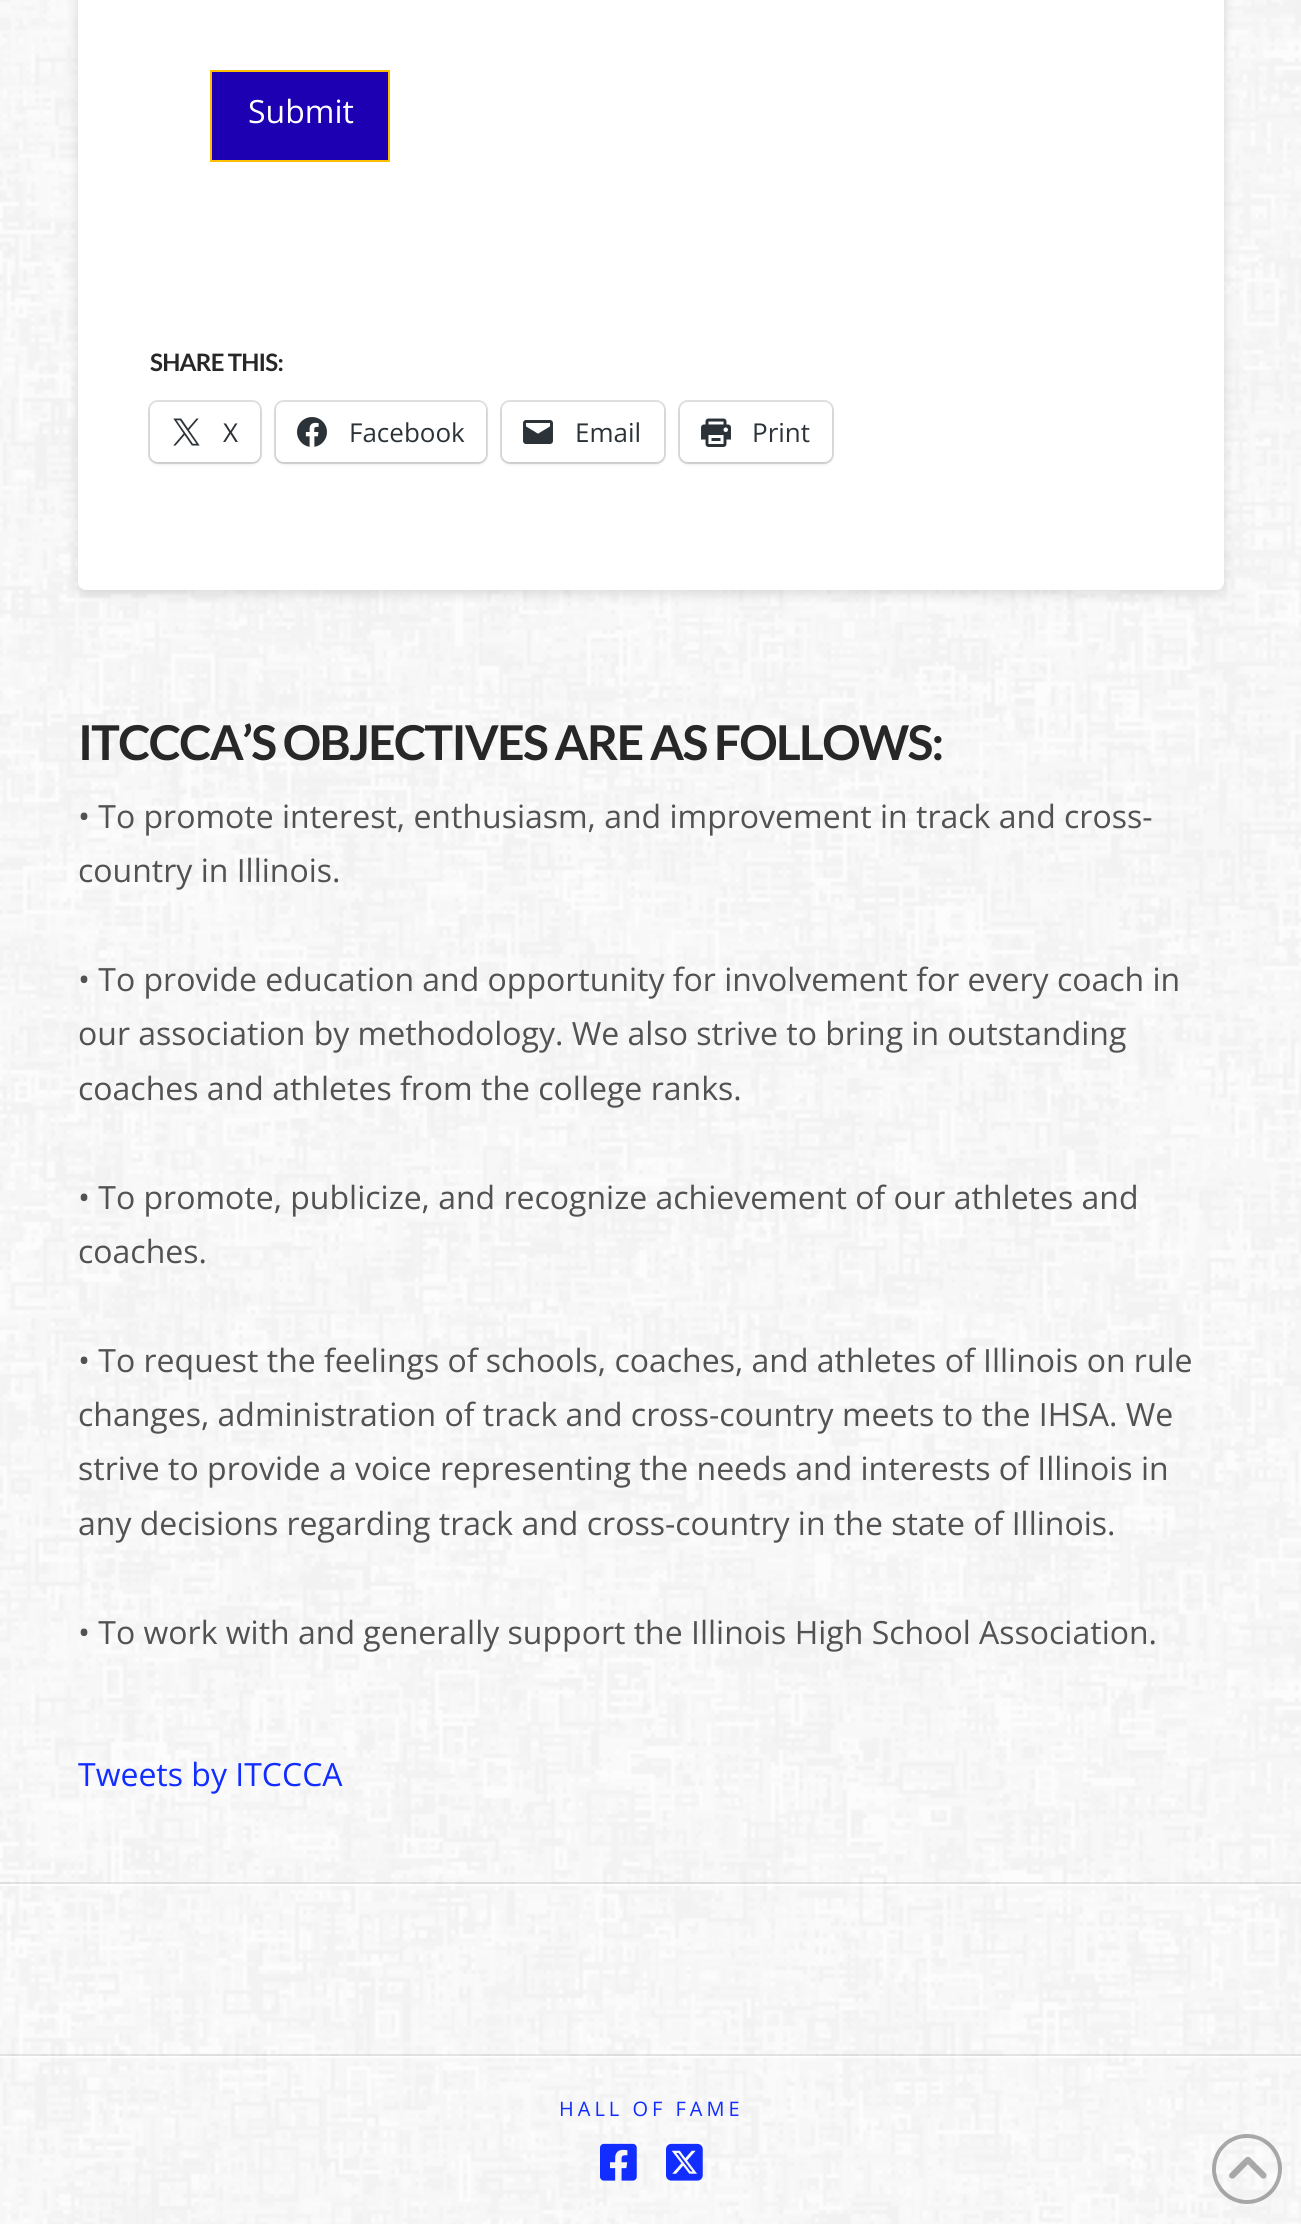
import math
import cairo

surface = cairo.ImageSurface(cairo.Format.RGB24, 1301, 2224)
ctx = cairo.Context(surface)
options = cairo.FontOptions()
options.set_hint_metrics(cairo.HintMetrics.OFF)
options.set_hint_style(cairo.HintStyle.NONE)
ctx.set_font_options(options)
ctx.set_miter_limit(4)


def ink(r, g, b):
    ctx.set_source_rgb(r / 255, g / 255, b / 255)


def write(x, y, s, family, size, color, bold=False, italic=False):
    ctx.select_font_face(family, cairo.FontSlant.ITALIC if italic else cairo.FontSlant.NORMAL, cairo.FontWeight.BOLD if bold else cairo.FontWeight.NORMAL)
    ctx.set_font_size(size)
    ink(*color)
    ctx.move_to(x, y)
    ctx.show_text(s)


def write_spaced(x, y, s, letter, word):
    ctx.move_to(x, y)
    for ch in s:
        ctx.show_text(ch)
        ctx.rel_move_to(letter + word * (ch == ' '), 0)


def round_path(x, y, w, h, r):
    ctx.new_sub_path()
    for i, (u, v) in enumerate([(x + w - r, y + h - r), (x + r, y + h - r), (x + r, y + r), (x + w - r, y + r)]):
        ctx.arc(u, v, r, i * math.pi / 2, (i + 1) * math.pi / 2)
    ctx.close_path()


def blur_box(x, y, w, h, r, blur, alpha):
    ctx.push_group_with_content(cairo.Content.ALPHA)
    ctx.set_operator(cairo.Operator.SOURCE)
    for i in range(15, -16, -2):
        e = blur * i / 6
        if min(w, h) + 2 * e > 0:
            ctx.set_source_rgba(0, 0, 0, alpha * math.erfc((i - 1) / 8.5) / 2)
            round_path(x - e, y - e, w + 2 * e, h + 2 * e, max(0, min(r + e + blur * .6, min(w, h) / 2 + e)))
            ctx.fill()
    ctx.mask(ctx.pop_group())


def paste(path, x, y, w, h):
    ctx.save()
    ctx.set_source_surface(cairo.ImageSurface.create_from_png(path), x, y)
    ctx.rectangle(x, y, w, h)
    ctx.fill()
    ctx.restore()


s1 = dict(family="Open Sans", size=32, color=(255, 255, 255))
s2 = dict(family="Open Sans", size=26, color=(44, 51, 56))
s3 = dict(family="Open Sans", size=32, color=(82, 82, 82))
s4 = dict(family="Open Sans", size=32, color=(17, 45, 255))

ink(255, 255, 255)
ctx.paint()
paste("pic1.png", 0, 0, 1301, 2224)
ink(0, 0, 0)
blur_box(78, -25, 1146, 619, 8, 5.5, 0.13)
ink(255, 255, 255)
round_path(78, -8, 1146, 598, 8)
ctx.fill()
ink(30, 0, 179)
ctx.rectangle(211, 71, 178, 90)
ctx.fill_preserve()
ink(255, 191, 0)
ctx.stroke()
write(248, 123, "Submit", **s1)
ctx.select_font_face("Lato", cairo.FontSlant.NORMAL, cairo.FontWeight.BOLD)
ctx.set_font_size(24)
ink(39, 39, 39)
write_spaced(150, 371, "SHARE THIS:", -0.75, 0)
round_path(149, 401, 112, 62, 9)
ink(224, 224, 224)
ctx.stroke()
ink(0, 0, 0)
blur_box(150, 404, 110, 60, 8, 2, 0.12)
ink(255, 255, 255)
round_path(150, 402, 110, 60, 8)
ctx.fill()
paste("pic2.png", 173, 418, 27, 28)
write(223, 442, "X", **s2)
round_path(275, 401, 212, 62, 9)
ink(224, 224, 224)
ctx.stroke()
ink(0, 0, 0)
blur_box(276, 404, 210, 60, 8, 2, 0.12)
ink(255, 255, 255)
round_path(276, 402, 210, 60, 8)
ctx.fill()
paste("pic3.png", 297, 417, 30, 30)
write(349, 442, "Facebook", **s2)
round_path(501, 401, 164, 62, 9)
ink(224, 224, 224)
ctx.stroke()
ink(0, 0, 0)
blur_box(502, 404, 162, 60, 8, 2, 0.12)
ink(255, 255, 255)
round_path(502, 402, 162, 60, 8)
ctx.fill()
paste("pic4.png", 523, 420, 30, 24)
write(575, 442, "Email", **s2)
round_path(679, 401, 154, 62, 9)
ink(224, 224, 224)
ctx.stroke()
ink(0, 0, 0)
blur_box(680, 404, 152, 60, 8, 2, 0.12)
ink(255, 255, 255)
round_path(680, 402, 152, 60, 8)
ctx.fill()
paste("pic5.png", 701, 418, 30, 29)
write(752, 442, "Print", **s2)
ctx.select_font_face("Lato", cairo.FontSlant.NORMAL, cairo.FontWeight.BOLD)
ctx.set_font_size(48)
ink(39, 39, 39)
write_spaced(78, 760, "ITCCCA’S OBJECTIVES ARE AS FOLLOWS:", -1.7, 0)
write(78, 828, "• To promote interest, enthusiasm, and improvement in track and cross-", **s3)
write(78, 882, "country in Illinois.", **s3)
write(78, 991, "• To provide education and opportunity for involvement for every coach in", **s3)
write(78, 1045, "our association by methodology. We also strive to bring in outstanding", **s3)
write(78, 1100, "coaches and athletes from the college ranks.", **s3)
write(78, 1209, "• To promote, publicize, and recognize achievement of our athletes and", **s3)
write(78, 1263, "coaches.", **s3)
write(78, 1372, "• To request the feelings of schools, coaches, and athletes of Illinois on rule", **s3)
write(78, 1426, "changes, administration of track and cross-country meets to the IHSA. We", **s3)
write(78, 1480, "strive to provide a voice representing the needs and interests of Illinois in", **s3)
write(78, 1535, "any decisions regarding track and cross-country in the state of Illinois.", **s3)
write(78, 1644, "• To work with and generally support the Illinois High School Association.", **s3)
write(78, 1786, "Tweets by ITCCCA", **s4)
ctx.set_source_rgba(1, 1, 1, 0.8)
ctx.rectangle(0, 1884, 1301, 2)
ctx.fill()
ctx.set_source_rgba(0, 0, 0, 0.09)
ctx.rectangle(0, 1882, 1301, 2)
ctx.fill()
ctx.set_source_rgba(1, 1, 1, 0.8)
ctx.rectangle(0, 2056, 1301, 2)
ctx.fill()
ctx.set_source_rgba(0, 0, 0, 0.09)
ctx.rectangle(0, 2054, 1301, 2)
ctx.fill()
ctx.set_font_size(20)
ink(17, 45, 255)
write_spaced(559, 2116, "HALL OF FAME", 4, 0)
paste("pic6.png", 600, 2143, 37, 38)
paste("pic7.png", 666, 2143, 37, 38)
ctx.arc(1247, 2169, 33, 0, 2 * math.pi)
ctx.set_source_rgba(0.153, 0.153, 0.153, 0.38)
ctx.set_line_width(4)
ctx.stroke()
paste("pic8.png", 1229, 2156, 38, 23)
surface.write_to_png("screenshot.png")
